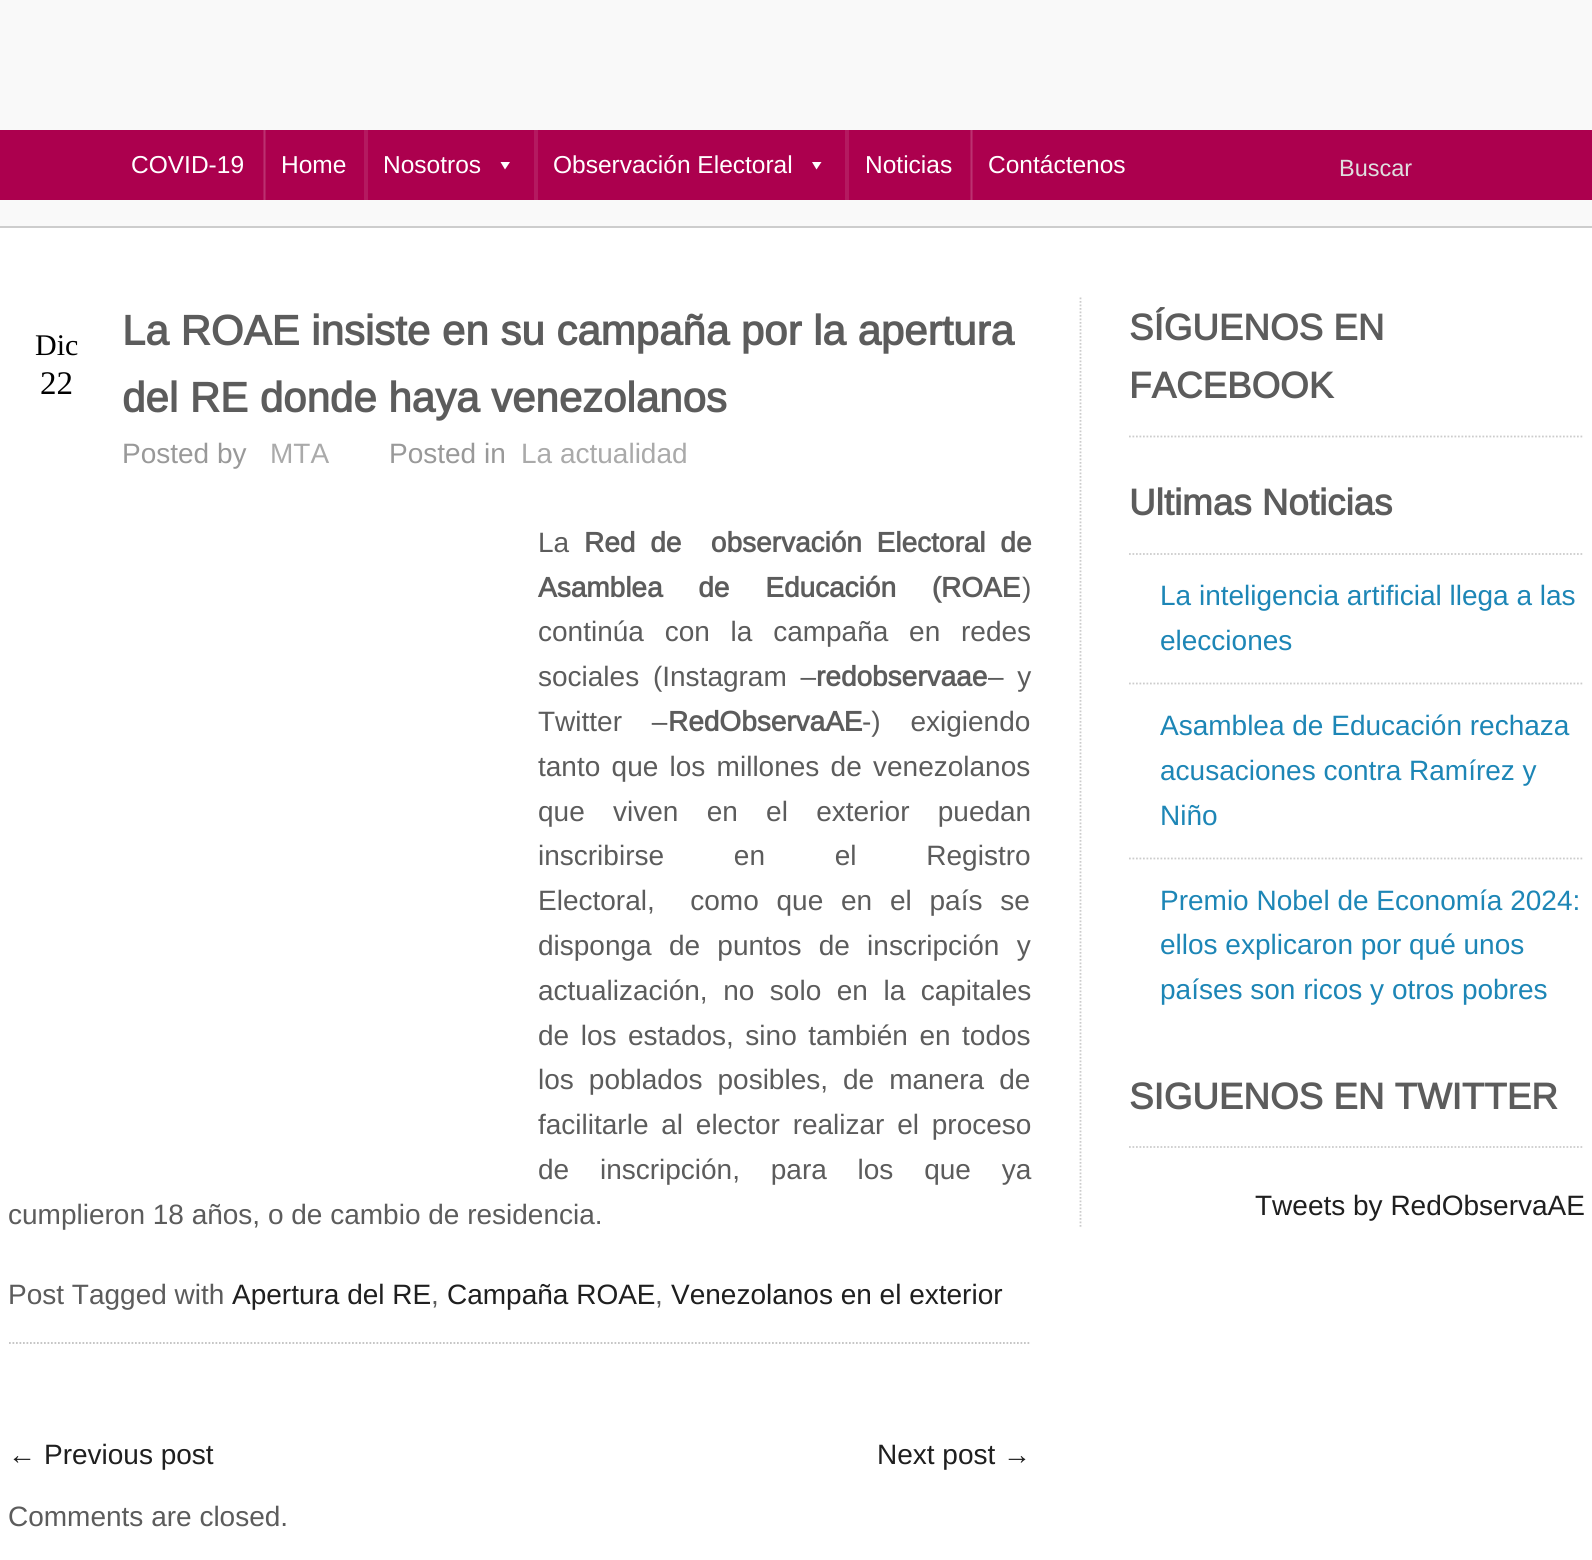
import math
import cairo

surface = cairo.ImageSurface(cairo.Format.RGB24, 1592, 1560)
ctx = cairo.Context(surface)
options = cairo.FontOptions()
options.set_hint_metrics(cairo.HintMetrics.OFF)
options.set_hint_style(cairo.HintStyle.NONE)
ctx.set_font_options(options)
ctx.set_miter_limit(4)


def ink(r, g, b):
    ctx.set_source_rgb(r / 255, g / 255, b / 255)


def write(x, y, s, family, size, color, bold=False, italic=False):
    ctx.select_font_face(family, cairo.FontSlant.ITALIC if italic else cairo.FontSlant.NORMAL, cairo.FontWeight.BOLD if bold else cairo.FontWeight.NORMAL)
    ctx.set_font_size(size)
    ink(*color)
    ctx.move_to(x, y)
    ctx.show_text(s)


def write_spaced(x, y, s, letter, word):
    ctx.move_to(x, y)
    for ch in s:
        ctx.show_text(ch)
        ctx.rel_move_to(letter + word * (ch == ' '), 0)


def block(x, y, w, h, *color):
    ink(*color)
    ctx.rectangle(x, y, w, h)
    ctx.fill()


s1 = dict(family="Arimo", size=24.5, color=(255, 255, 255))
s2 = dict(family="Liberation Sans", size=23.5, color=(223, 223, 223))
s3 = dict(family="Liberation Serif", size=30, color=(0, 0, 0))
s4 = dict(family="Liberation Serif", size=33, color=(0, 0, 0))
s5 = dict(family="Arimo", size=42, color=(92, 92, 92), bold=True)
s6 = dict(family="Arimo", size=28, color=(153, 153, 153))
s7 = dict(family="Arimo", size=28, color=(170, 170, 170))
s8 = dict(family="Arimo", size=28, color=(92, 92, 92))
s9 = dict(family="Arimo", size=28, color=(92, 92, 92), bold=True)
s10 = dict(family="Arimo", size=28, color=(31, 31, 31))
s11 = dict(family="Liberation Sans", size=28, color=(31, 31, 31))
s12 = dict(family="Arimo", size=36.75, color=(92, 92, 92), bold=True)
s13 = dict(family="Arimo", size=28, color=(29, 134, 182))

ink(255, 255, 255)
ctx.paint()
block(0, 0, 1592, 130, 249, 249, 249)
block(0, 130, 1592, 70, 172, 0, 78)
block(970, 130, 1, 70, 180, 26, 96)
block(263, 130, 1, 70, 180, 26, 96)
write(131, 173, "COVID-19", **s1)
block(265, 130, 1, 70, 180, 26, 96)
block(264, 130, 1, 70, 188, 49, 112)
write(281, 173, "Home", **s1)
block(364, 130, 4, 70, 180, 26, 96)
write(383, 173, "Nosotros", **s1)
ctx.new_path()
ctx.move_to(510, 162)
ctx.line_to(505, 169.5)
ctx.line_to(500.5, 162)
ctx.close_path()
ctx.fill()
block(534, 130, 4, 70, 180, 26, 96)
write(553, 173, "Observación Electoral", **s1)
ctx.new_path()
ctx.move_to(821.5, 162)
ctx.line_to(816.5, 169.5)
ctx.line_to(812, 162)
ctx.close_path()
ctx.fill()
block(845, 130, 4, 70, 180, 26, 96)
write(865, 173, "Noticias", **s1)
block(972, 130, 1, 70, 180, 26, 96)
block(971, 130, 1, 70, 188, 49, 112)
write(988, 173, "Contáctenos", **s1)
write(1339, 176, "Buscar", **s2)
block(0, 200, 1592, 26, 249, 249, 249)
block(0, 226, 1592, 2, 205, 205, 205)
ctx.new_path()
ctx.move_to(9, 1343)
ctx.line_to(1031, 1343)
ink(192, 192, 192)
ctx.set_line_width(1.8)
ctx.set_dash([1.75, 1.75])
ctx.stroke()
write(35, 355, "Dic", **s3)
write(40, 394, "22", **s4)
write(122, 345, "La ROAE insiste en su campaña por la apertura", **s5)
write(122, 412, "del RE donde haya venezolanos", **s5)
write(122, 463, "Posted by", **s6)
write(270, 463, "MTA", **s7)
write(389, 463, "Posted in", **s6)
write(521, 463, "La actualidad", **s7)
write(538, 552, "La", **s8)
ctx.select_font_face("Arimo", cairo.FontSlant.NORMAL, cairo.FontWeight.BOLD)
write_spaced(584, 552, "Red de  observación Electoral de", 0, 7)
write_spaced(538, 597, "Asamblea de Educación (ROAE", 0, 28)
write(1022, 597, ")", **s8)
write_spaced(538, 641, "continúa con la campaña en redes", 0, 13)
write_spaced(538, 686, "sociales (Instagram –", 0, 6)
write(816, 686, "redobservaae", **s9)
ctx.select_font_face("Arimo")
write_spaced(988, 686, "– y", 0, 6)
write_spaced(538, 731, "Twitter –", 0, 22)
write(668, 731, "RedObservaAE", **s9)
ctx.select_font_face("Arimo")
write_spaced(862, 731, "-) exigiendo", 0, 22)
write_spaced(538, 776, "tanto que los millones de venezolanos", 0, 3.5)
write_spaced(538, 821, "que viven en el exterior puedan", 0, 20.5)
write_spaced(538, 865, "inscribirse en el Registro", 0, 62)
write_spaced(538, 910, "Electoral,  como que en el país se", 0, 10)
write_spaced(538, 955, "disponga de puntos de inscripción y", 0, 9.5)
write_spaced(538, 1000, "actualización, no solo en la capitales", 0, 7.75)
write_spaced(538, 1045, "de los estados, sino también en todos", 0, 3.75)
write_spaced(538, 1089, "los poblados posibles, de manera de", 0, 7.25)
write_spaced(538, 1134, "facilitarle al elector realizar el proceso", 0, 5)
write_spaced(538, 1179, "de inscripción, para los que ya", 0, 23)
write(8, 1224, "cumplieron 18 años, o de cambio de residencia.", **s8)
write(8, 1304, "Post Tagged with", **s8)
write(232, 1304, "Apertura del RE", **s10)
write(431, 1304, ",", **s8)
write(447, 1304, "Campaña ROAE", **s10)
write(655, 1304, ",", **s8)
write(671, 1304, "Venezolanos en el exterior", **s10)
write(8, 1464, "←", **s11)
write(44, 1464, "Previous post", **s10)
write(877, 1464, "Next post", **s10)
write(1003, 1464, "→", **s11)
write(8, 1526, "Comments are closed.", **s8)
ctx.new_path()
ctx.move_to(1080.5, 297.5)
ctx.line_to(1080.5, 1228.5)
ink(204, 204, 204)
ctx.stroke()
ctx.new_path()
ctx.move_to(1129, 436.5)
ctx.line_to(1584, 436.5)
ctx.stroke()
write(1129, 340, "SÍGUENOS EN", **s12)
write(1129, 398, "FACEBOOK", **s12)
ctx.new_path()
ctx.move_to(1129, 554)
ctx.line_to(1584, 554)
ink(204, 204, 204)
ctx.stroke()
write(1129, 515, "Ultimas Noticias", **s12)
ctx.new_path()
ctx.move_to(1129, 683.5)
ctx.line_to(1584, 683.5)
ink(204, 204, 204)
ctx.stroke()
write(1160, 605, "La inteligencia artificial llega a las", **s13)
write(1160, 650, "elecciones", **s13)
ctx.new_path()
ctx.move_to(1129, 858.5)
ctx.line_to(1584, 858.5)
ink(204, 204, 204)
ctx.stroke()
write(1160, 735, "Asamblea de Educación rechaza", **s13)
write(1160, 780, "acusaciones contra Ramírez y", **s13)
write(1160, 825, "Niño", **s13)
write(1160, 910, "Premio Nobel de Economía 2024:", **s13)
write(1160, 954, "ellos explicaron por qué unos", **s13)
write(1160, 999, "países son ricos y otros pobres", **s13)
ctx.new_path()
ctx.move_to(1129, 1147)
ctx.line_to(1584, 1147)
ink(204, 204, 204)
ctx.stroke()
write(1129, 1109, "SIGUENOS EN TWITTER", **s12)
write(1255, 1215, "Tweets by RedObservaAE", **s10)
surface.write_to_png("screenshot.png")
